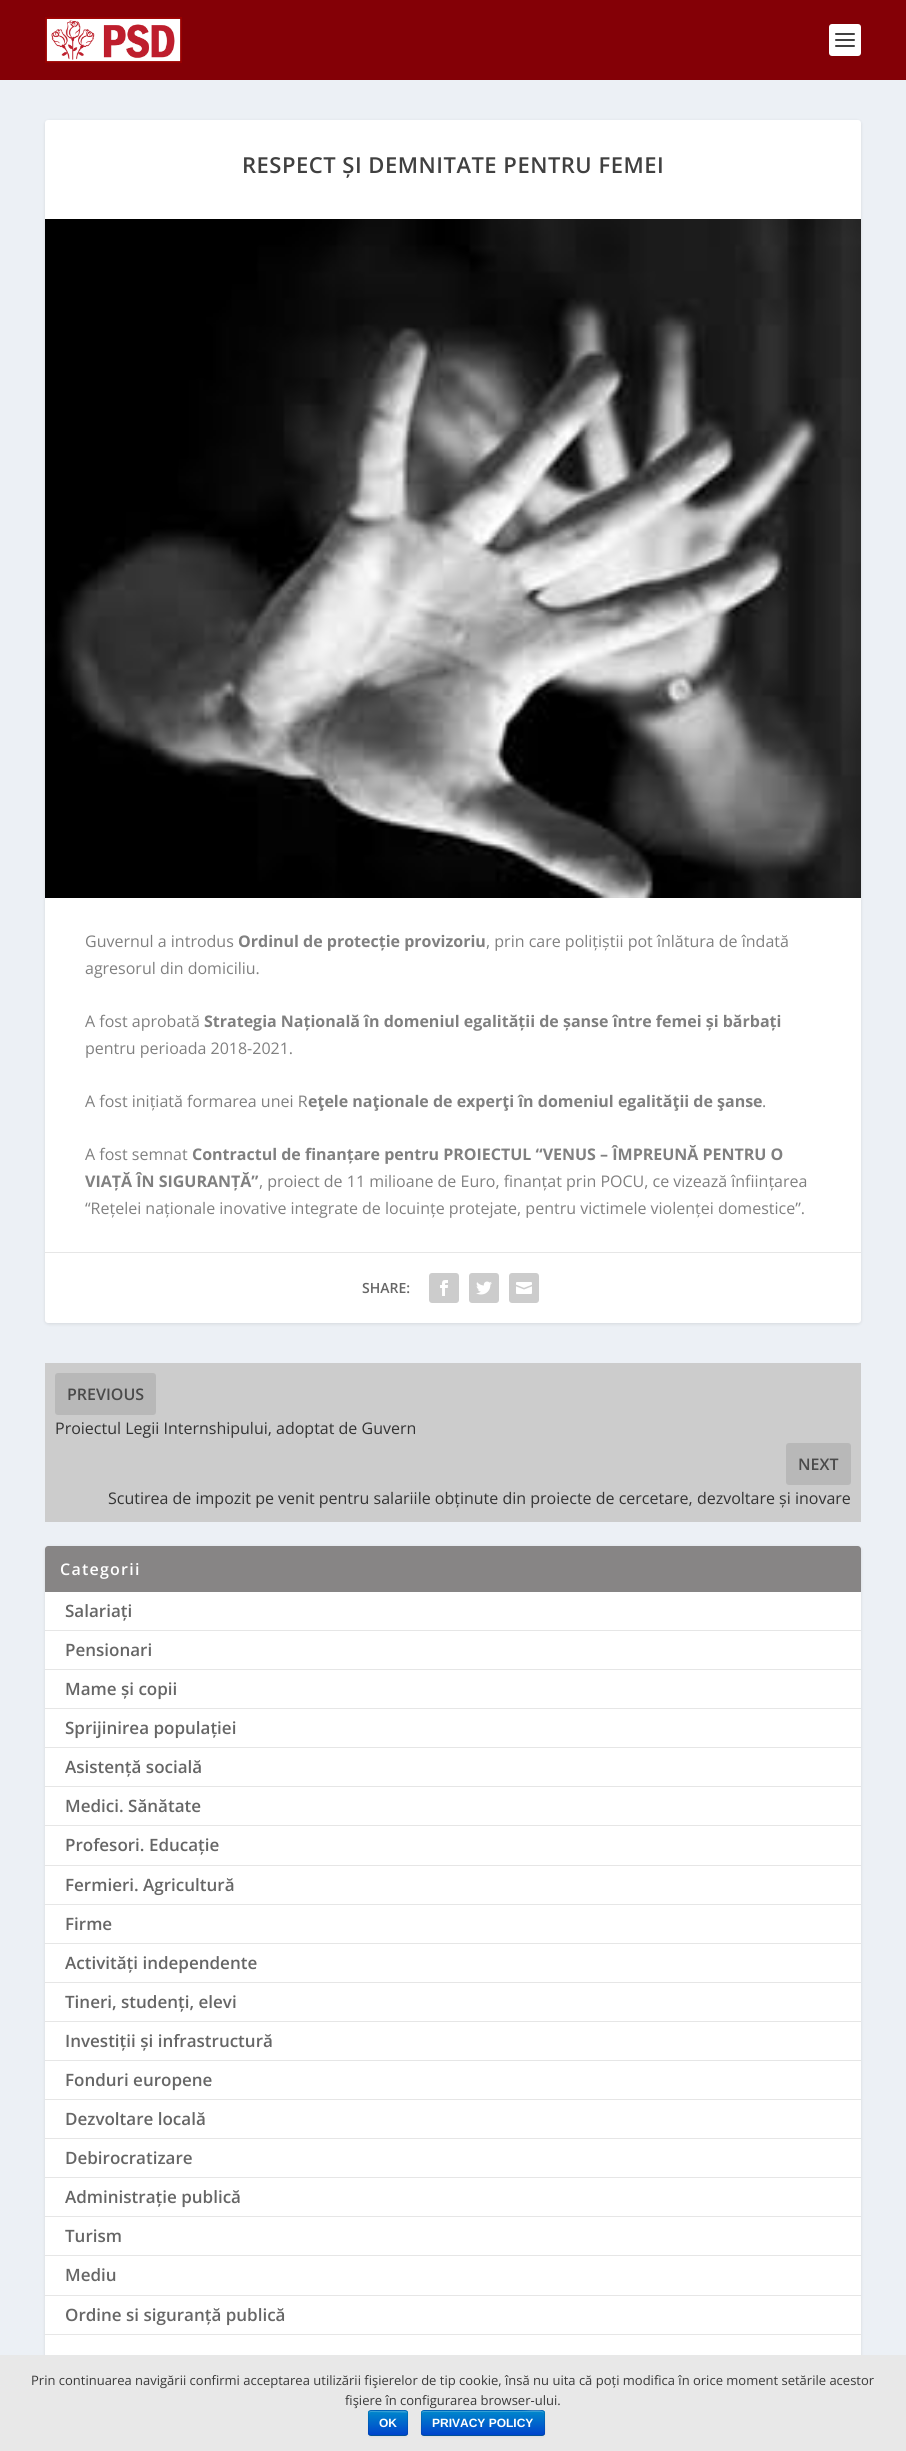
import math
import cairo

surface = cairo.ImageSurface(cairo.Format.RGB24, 906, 2451)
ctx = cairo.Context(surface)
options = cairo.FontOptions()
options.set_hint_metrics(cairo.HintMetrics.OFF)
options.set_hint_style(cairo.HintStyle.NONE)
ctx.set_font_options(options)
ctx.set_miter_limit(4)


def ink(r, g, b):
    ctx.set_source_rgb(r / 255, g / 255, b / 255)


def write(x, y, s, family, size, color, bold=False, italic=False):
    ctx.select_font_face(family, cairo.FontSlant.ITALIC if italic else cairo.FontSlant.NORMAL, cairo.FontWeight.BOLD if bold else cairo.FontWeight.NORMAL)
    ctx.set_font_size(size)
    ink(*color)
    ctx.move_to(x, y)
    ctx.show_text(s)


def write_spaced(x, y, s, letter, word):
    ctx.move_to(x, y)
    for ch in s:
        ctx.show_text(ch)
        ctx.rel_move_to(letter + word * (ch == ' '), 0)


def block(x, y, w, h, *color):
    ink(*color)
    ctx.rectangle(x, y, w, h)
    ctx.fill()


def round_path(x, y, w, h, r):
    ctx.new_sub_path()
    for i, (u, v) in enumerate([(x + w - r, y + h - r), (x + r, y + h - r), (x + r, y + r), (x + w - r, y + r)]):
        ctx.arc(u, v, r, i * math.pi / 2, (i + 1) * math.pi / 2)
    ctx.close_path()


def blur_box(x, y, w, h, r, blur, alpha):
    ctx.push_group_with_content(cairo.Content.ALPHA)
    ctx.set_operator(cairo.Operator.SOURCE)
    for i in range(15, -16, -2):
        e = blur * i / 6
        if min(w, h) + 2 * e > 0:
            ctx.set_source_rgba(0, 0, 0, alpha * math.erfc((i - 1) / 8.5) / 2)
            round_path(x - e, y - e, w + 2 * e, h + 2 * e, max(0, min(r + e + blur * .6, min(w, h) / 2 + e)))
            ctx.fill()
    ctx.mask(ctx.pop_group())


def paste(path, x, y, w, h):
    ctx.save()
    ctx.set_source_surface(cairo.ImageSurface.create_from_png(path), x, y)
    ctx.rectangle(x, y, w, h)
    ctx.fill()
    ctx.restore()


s1 = dict(family="Open Sans", size=16, color=(128, 128, 128))
s2 = dict(family="Open Sans", size=16, color=(128, 128, 128), bold=True)
s3 = dict(family="Open Sans SemiBold", size=14, color=(102, 102, 102))
s4 = dict(family="Open Sans SemiBold", size=16, color=(74, 74, 74))
s5 = dict(family="Open Sans", size=16, color=(51, 51, 51))
s6 = dict(family="Open Sans SemiBold", size=17, color=(102, 102, 102))
s7 = dict(family="Open Sans", size=13, color=(58, 58, 58))
s8 = dict(family="Liberation Sans", size=12, color=(255, 255, 255), bold=True)

ink(236, 240, 245)
ctx.paint()
block(0, 0, 906, 80, 132, 0, 6)
paste("pic1.png", 45, 17, 137, 46)
ink(255, 255, 255)
round_path(829, 24, 32, 32, 3)
ctx.fill()
ink(64, 64, 64)
round_path(835, 33, 20, 2, 1)
ctx.fill()
round_path(835, 39, 20, 2, 1)
ctx.fill()
round_path(835, 45, 20, 2, 1)
ctx.fill()
ink(0, 0, 0)
blur_box(45, 121, 816, 1203, 3, 1.5, 0.1)
ink(255, 255, 255)
round_path(45, 120, 816, 1203, 3)
ctx.fill()
ctx.select_font_face("Open Sans SemiBold")
ctx.set_font_size(22)
ink(64, 64, 64)
write_spaced(242, 173, "RESPECT ȘI DEMNITATE PENTRU FEMEI", 0.5, 0)
paste("pic2.png", 45, 219, 816, 679)
write(85, 947, "Guvernul a introdus", **s1)
write(238, 947, "Ordinul de protecție provizoriu", **s2)
write(486, 947, ", prin care polițiștii pot înlătura de îndată", **s1)
write(85, 974, "agresorul din domiciliu.", **s1)
write(85, 1027, "A fost aprobată", **s1)
write(204, 1027, "Strategia Națională în domeniul egalității de șanse între femei și bărbați", **s2)
write(85, 1054, "pentru perioada 2018-2021.", **s1)
write(85, 1107, "A fost inițiată formarea unei R", **s1)
write(308, 1107, "eţele naţionale de experţi în domeniul egalităţii de şanse", **s2)
write(762, 1107, ".", **s1)
write(85, 1160, "A fost semnat", **s1)
write(192, 1160, "Contractul de finanțare pentru PROIECTUL “VENUS – ÎMPREUNĂ PENTRU O", **s2)
write(85, 1187, "VIAȚĂ ÎN SIGURANȚĂ”", **s2)
write(259, 1187, ", proiect de 11 milioane de Euro, finanțat prin POCU, ce vizează înființarea", **s1)
write(85, 1214, "“Rețelei naționale inovative integrate de locuințe protejate, pentru victimele violenței domestice”.", **s1)
block(45, 1252, 816, 1, 230, 230, 230)
write(362, 1293, "SHARE:", **s3)
ink(204, 204, 204)
round_path(429, 1273, 30, 30, 3)
ctx.fill()
paste("pic3.png", 440, 1280, 8, 16)
round_path(469, 1273, 30, 30, 3)
ctx.fill()
paste("pic4.png", 476, 1281, 16, 14)
round_path(509, 1273, 30, 30, 3)
ctx.fill()
paste("pic5.png", 516, 1282, 16, 12)
block(45, 1363, 816, 159, 204, 204, 204)
ink(184, 184, 184)
round_path(55, 1373, 101, 42, 3)
ctx.fill()
write(67, 1400, "PREVIOUS", **s4)
write(55, 1434, "Proiectul Legii Internshipului, adoptat de Guvern", **s5)
ink(184, 184, 184)
round_path(786, 1443, 65, 42, 3)
ctx.fill()
write(798, 1470, "NEXT", **s4)
write(108, 1504, "Scutirea de impozit pe venit pentru salariile obținute din proiecte de cercetare, dezvoltare și inovare", **s5)
ink(0, 0, 0)
blur_box(45, 1547, 816, 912, 3, 1.5, 0.1)
ink(255, 255, 255)
round_path(45, 1546, 816, 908, 3)
ctx.fill()
ink(135, 133, 133)
ctx.new_path()
ctx.move_to(48, 1546)
ctx.line_to(858, 1546)
ctx.curve_to(859.5, 1546, 861, 1547.5, 861, 1549)
ctx.line_to(861, 1592)
ctx.line_to(45, 1592)
ctx.line_to(45, 1549)
ctx.curve_to(45, 1547.5, 46.5, 1546, 48, 1546)
ctx.close_path()
ctx.fill()
ctx.select_font_face("Open Sans SemiBold")
ink(255, 255, 255)
write_spaced(60, 1575, "Categorii", 1.25, 0)
block(45, 1630, 816, 1, 230, 230, 230)
write(65, 1617, "Salariați", **s6)
block(45, 1669, 816, 1, 230, 230, 230)
write(65, 1656, "Pensionari", **s6)
block(45, 1708, 816, 1, 230, 230, 230)
write(65, 1695, "Mame și copii", **s6)
block(45, 1747, 816, 1, 230, 230, 230)
write(65, 1734, "Sprijinirea populației", **s6)
block(45, 1786, 816, 1, 230, 230, 230)
write(65, 1773, "Asistență socială", **s6)
block(45, 1825, 816, 1, 230, 230, 230)
write(65, 1812, "Medici. Sănătate", **s6)
block(45, 1865, 816, 1, 230, 230, 230)
write(65, 1851, "Profesori. Educație", **s6)
block(45, 1904, 816, 1, 230, 230, 230)
write(65, 1891, "Fermieri. Agricultură", **s6)
block(45, 1943, 816, 1, 230, 230, 230)
write(65, 1930, "Firme", **s6)
block(45, 1982, 816, 1, 230, 230, 230)
write(65, 1969, "Activități independente", **s6)
block(45, 2021, 816, 1, 230, 230, 230)
write(65, 2008, "Tineri, studenți, elevi", **s6)
block(45, 2060, 816, 1, 230, 230, 230)
write(65, 2047, "Investiții și infrastructură", **s6)
block(45, 2099, 816, 1, 230, 230, 230)
write(65, 2086, "Fonduri europene", **s6)
block(45, 2138, 816, 1, 230, 230, 230)
write(65, 2125, "Dezvoltare locală", **s6)
block(45, 2177, 816, 1, 230, 230, 230)
write(65, 2164, "Debirocratizare", **s6)
block(45, 2216, 816, 1, 230, 230, 230)
write(65, 2203, "Administrație publică", **s6)
block(45, 2255, 816, 1, 230, 230, 230)
write(65, 2242, "Turism", **s6)
block(45, 2295, 816, 1, 230, 230, 230)
write(65, 2281, "Mediu", **s6)
block(45, 2334, 816, 1, 230, 230, 230)
write(65, 2321, "Ordine si siguranță publică", **s6)
block(0, 2355, 906, 96, 232, 232, 232)
write(31, 2385, "Prin continuarea navigării confirmi acceptarea utilizării fişierelor de tip cookie, însă nu uita că poți modifica în orice moment setările acestor", **s7)
write(345, 2405, "fişiere în configurarea browser-ului.", **s7)
ink(0, 0, 0)
blur_box(368, 2411, 40, 26, 3, 1, 0.05)
ink(0, 109, 204)
round_path(368, 2410, 40, 26, 3)
ctx.fill()
ctx.save()
round_path(368, 2410, 40, 26, 3)
ctx.clip()
gradient = cairo.LinearGradient(388, 2411, 388, 2435)
gradient.add_color_stop_rgba(0, 0, 0.533, 0.8, 1)
gradient.add_color_stop_rgba(1, 0, 0.267, 0.8, 1)
ctx.set_source(gradient)
ctx.rectangle(368, 2411, 40, 24)
ctx.fill()
ctx.restore()
ctx.set_source_rgba(1, 1, 1, 0.2)
ctx.set_fill_rule(cairo.FillRule.EVEN_ODD)
ctx.new_path()
ctx.move_to(371, 2412)
ctx.line_to(405.5, 2412.5)
ctx.curve_to(406, 2412.5, 406.5, 2412.5, 407, 2413.5)
ctx.curve_to(407, 2409.5, 401, 2411, 399.5, 2411)
ctx.line_to(376.5, 2411)
ctx.curve_to(371.5, 2411, 369, 2409.5, 369, 2414.5)
ctx.curve_to(369, 2413, 370, 2412, 371, 2412)
ctx.close_path()
ctx.move_to(369, 2433.5)
ctx.line_to(369, 2433)
ctx.close_path()
ctx.fill()
ctx.new_path()
ctx.move_to(407, 2435)
ctx.line_to(405, 2435.5)
ctx.line_to(371, 2435.5)
ctx.line_to(369, 2435)
ctx.set_source_rgba(0, 0, 0, 0.25)
ctx.set_line_width(1)
ctx.stroke()
ctx.new_path()
ctx.move_to(369, 2435)
ctx.curve_to(369, 2434.5, 368.5, 2433.5, 368.5, 2433)
ctx.line_to(368.5, 2413)
ctx.curve_to(368.5, 2412.5, 369, 2411.5, 369, 2411)
ctx.curve_to(369.5, 2411, 370.5, 2410.5, 371, 2410.5)
ctx.line_to(405, 2410.5)
ctx.curve_to(405.5, 2410.5, 406.5, 2411, 407, 2411)
ctx.curve_to(407, 2411.5, 407.5, 2412.5, 407.5, 2413)
ctx.line_to(407.5, 2433)
ctx.curve_to(407.5, 2433.5, 407, 2434.5, 407, 2435)
ctx.set_source_rgba(0, 0, 0, 0.1)
ctx.stroke()
write(379, 2427, "OK", **s8)
ink(0, 0, 0)
blur_box(421, 2411, 124, 26, 3, 1, 0.05)
ink(0, 109, 204)
round_path(421, 2410, 124, 26, 3)
ctx.fill()
ctx.save()
ctx.set_fill_rule(cairo.FillRule.WINDING)
round_path(421, 2410, 124, 26, 3)
ctx.clip()
gradient = cairo.LinearGradient(483, 2411, 483, 2435)
gradient.add_color_stop_rgba(0, 0, 0.533, 0.8, 1)
gradient.add_color_stop_rgba(1, 0, 0.267, 0.8, 1)
ctx.set_source(gradient)
ctx.rectangle(421, 2411, 124, 24)
ctx.fill()
ctx.restore()
ctx.set_source_rgba(1, 1, 1, 0.2)
ctx.set_fill_rule(cairo.FillRule.WINDING)
ctx.new_path()
ctx.move_to(424, 2412)
ctx.line_to(542, 2412)
ctx.line_to(544, 2413)
ctx.line_to(544, 2414)
ctx.curve_to(544, 2407, 528, 2411, 522, 2411)
ctx.line_to(423, 2411)
ctx.curve_to(422, 2412, 422, 2413, 422, 2414)
ctx.curve_to(422, 2413, 423, 2412, 424, 2412)
ctx.close_path()
ctx.fill()
ctx.new_path()
ctx.move_to(544, 2435)
ctx.line_to(542, 2435.5)
ctx.line_to(424, 2435.5)
ctx.line_to(422, 2435)
ctx.set_source_rgba(0, 0, 0, 0.25)
ctx.stroke()
ctx.new_path()
ctx.move_to(422, 2435)
ctx.curve_to(420.5, 2433, 421.5, 2425.5, 421.5, 2423)
ctx.line_to(421.5, 2416.5)
ctx.curve_to(421.5, 2414.5, 421, 2410.5, 424, 2410.5)
ctx.line_to(542, 2410.5)
ctx.curve_to(545, 2410.5, 544.5, 2414.5, 544.5, 2416.5)
ctx.line_to(544.5, 2423)
ctx.curve_to(544.5, 2425.5, 545.5, 2433, 544, 2435)
ctx.set_source_rgba(0, 0, 0, 0.1)
ctx.stroke()
write(432, 2427, "PRIVACY POLICY", **s8)
surface.write_to_png("screenshot.png")
